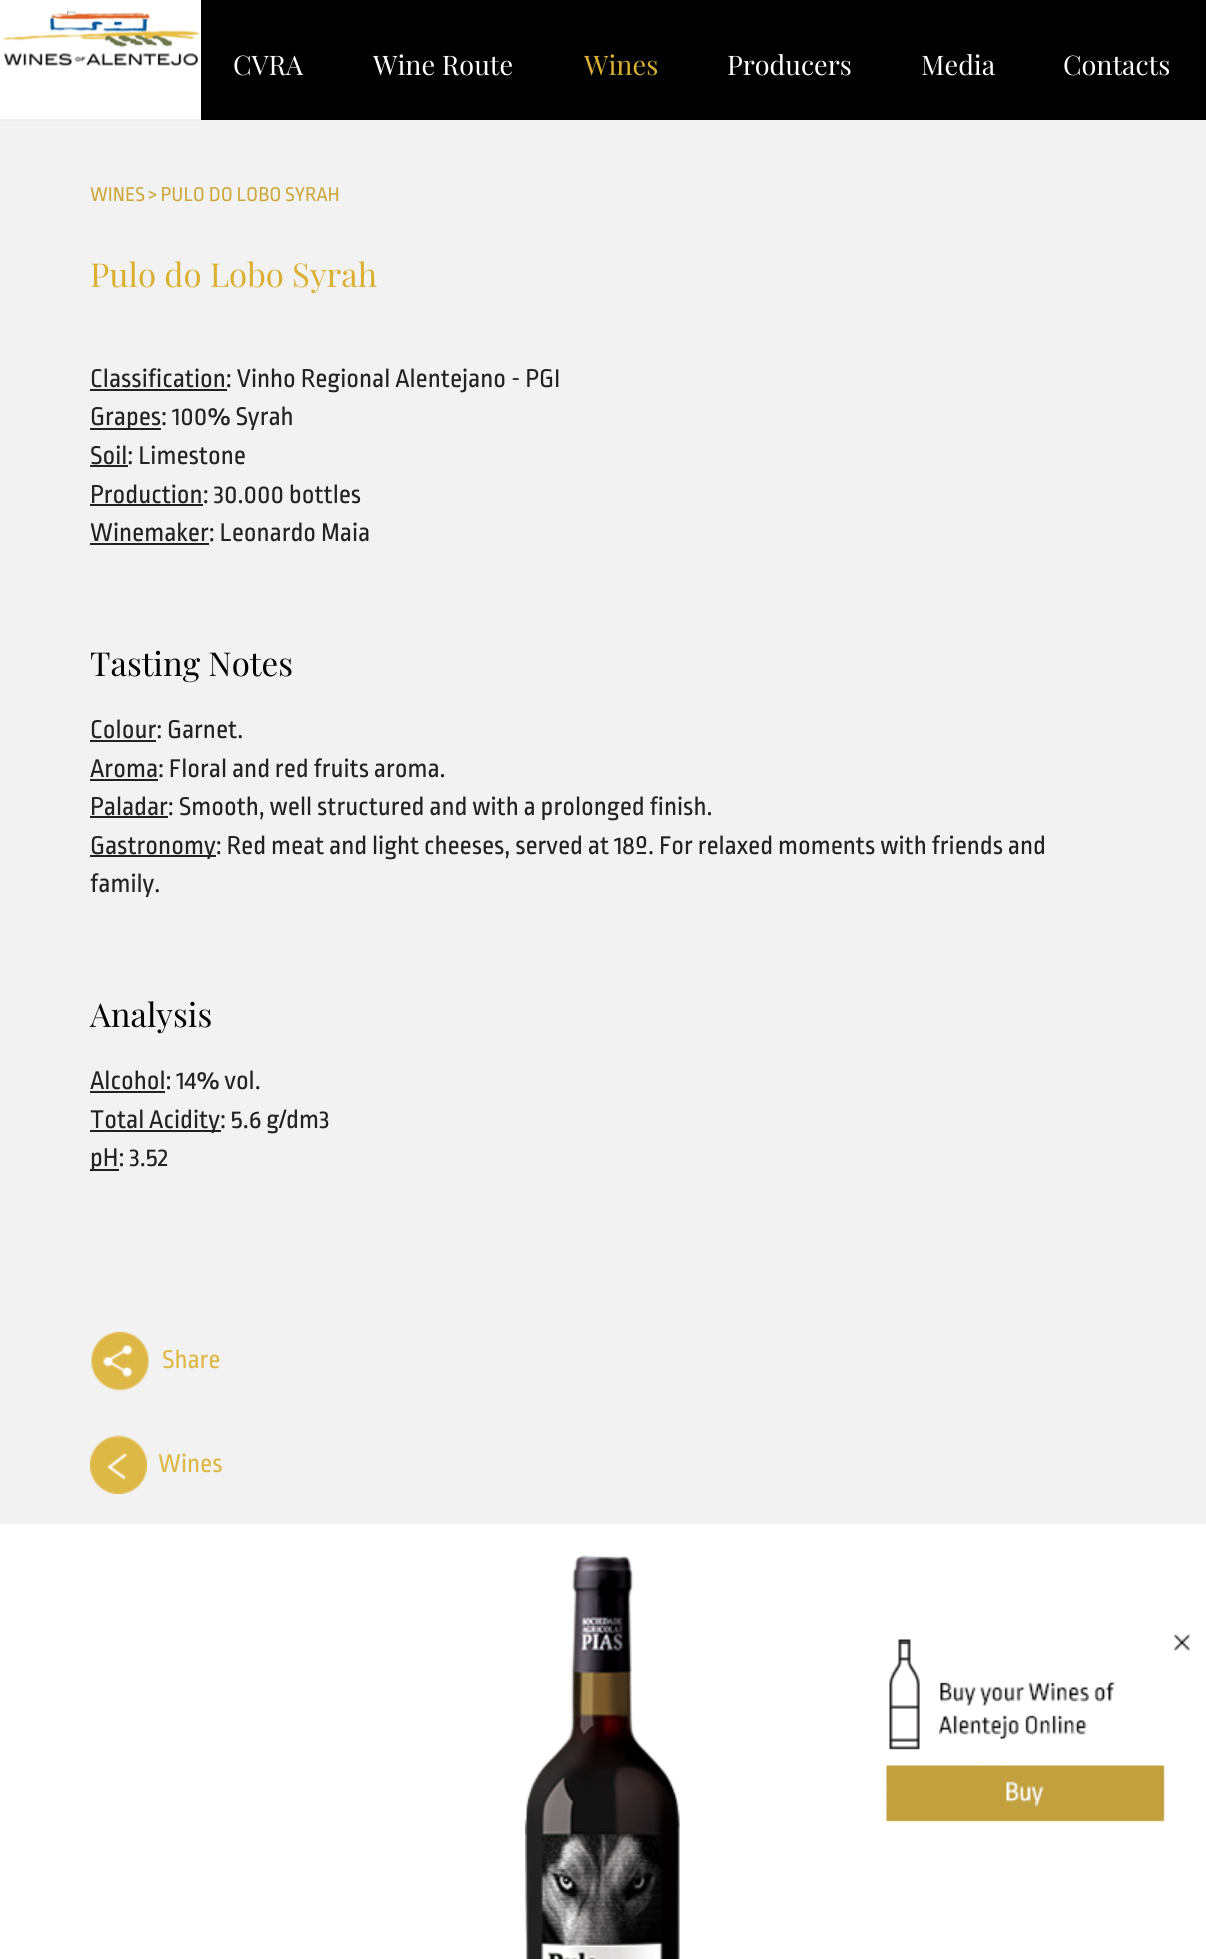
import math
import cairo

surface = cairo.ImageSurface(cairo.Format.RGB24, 1206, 1959)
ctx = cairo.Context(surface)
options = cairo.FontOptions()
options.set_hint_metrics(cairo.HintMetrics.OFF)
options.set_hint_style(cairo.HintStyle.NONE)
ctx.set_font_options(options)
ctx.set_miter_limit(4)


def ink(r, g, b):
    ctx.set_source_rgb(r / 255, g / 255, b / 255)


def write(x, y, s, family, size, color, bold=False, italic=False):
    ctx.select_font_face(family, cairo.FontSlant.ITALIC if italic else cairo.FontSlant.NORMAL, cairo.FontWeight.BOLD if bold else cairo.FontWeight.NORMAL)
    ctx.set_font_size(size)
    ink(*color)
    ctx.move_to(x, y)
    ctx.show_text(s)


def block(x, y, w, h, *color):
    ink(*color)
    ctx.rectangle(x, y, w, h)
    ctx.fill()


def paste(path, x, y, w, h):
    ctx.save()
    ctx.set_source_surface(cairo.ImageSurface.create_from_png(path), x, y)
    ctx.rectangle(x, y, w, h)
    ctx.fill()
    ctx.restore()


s1 = dict(family="Playfair Display", size=27, color=(255, 255, 255))
s2 = dict(family="Playfair Display", size=27, color=(218, 176, 50))
s3 = dict(family="Ropa Sans", size=21, color=(204, 168, 60))
s4 = dict(family="Playfair Display", size=33, color=(218, 176, 50))
s5 = dict(family="Ropa Sans", size=27, color=(34, 34, 34))
s6 = dict(family="Playfair Display", size=33, color=(0, 0, 0))
s7 = dict(family="Ropa Sans", size=27, color=(222, 184, 70))

ink(255, 255, 255)
ctx.paint()
block(0, 120, 1206, 1404, 242, 242, 242)
block(0, 119, 201, 2, 239, 239, 239)
paste("pic1.png", 2, 10, 198, 56)
block(201, 0, 1005, 120, 0, 0, 0)
write(233, 75, "CVRA", **s1)
write(373, 75, "Wine Route", **s1)
write(584, 75, "Wines", **s2)
write(727, 75, "Producers", **s1)
write(921, 75, "Media", **s1)
write(1063, 75, "Contacts", **s1)
write(90, 201, "WINES > PULO DO LOBO SYRAH", **s3)
write(90, 287, "Pulo do Lobo Syrah", **s4)
block(90, 389, 137, 2, 34, 34, 34)
write(90, 387, "Classification: Vinho Regional Alentejano - PGI", **s5)
block(90, 428, 71, 2, 34, 34, 34)
write(90, 425, "Grapes: 100% Syrah", **s5)
write(90, 464, "Soil: Limestone", **s5)
block(90, 465, 38, 2, 34, 34, 34)
write(90, 503, "Production: 30.000 bottles", **s5)
block(90, 504, 113, 2, 34, 34, 34)
write(90, 541, "Winemaker: Leonardo Maia", **s5)
block(90, 543, 119, 2, 34, 34, 34)
write(90, 676, "Tasting Notes", **s6)
write(90, 738, "Colour: Garnet.", **s5)
block(90, 740, 66, 2, 34, 34, 34)
write(90, 777, "Aroma: Floral and red fruits aroma.", **s5)
block(90, 779, 68, 2, 34, 34, 34)
block(90, 816, 78, 2, 34, 34, 34)
write(90, 815, "Paladar: Smooth, well structured and with a prolonged finish.", **s5)
block(90, 855, 126, 2, 34, 34, 34)
write(90, 854, "Gastronomy: Red meat and light cheeses, served at 18º. For relaxed moments with friends and", **s5)
write(90, 892, "family.", **s5)
write(90, 1027, "Analysis", **s6)
write(90, 1089, "Alcohol: 14% vol.", **s5)
block(90, 1091, 75, 2, 34, 34, 34)
block(90, 1130, 131, 2, 34, 34, 34)
write(90, 1128, "Total Acidity: 5.6 g/dm3", **s5)
block(90, 1169, 29, 2, 34, 34, 34)
write(90, 1166, "pH: 3.52", **s5)
paste("pic2.png", 91, 1331, 58, 60)
write(162, 1368, "Share", **s7)
paste("pic3.png", 90, 1435, 57, 59)
write(158, 1472, "Wines", **s7)
paste("pic4.png", 525, 1555, 155, 404)
paste("pic5.png", 886, 1639, 279, 183)
paste("pic6.png", 1174, 1634, 16, 17)
surface.write_to_png("screenshot.png")
